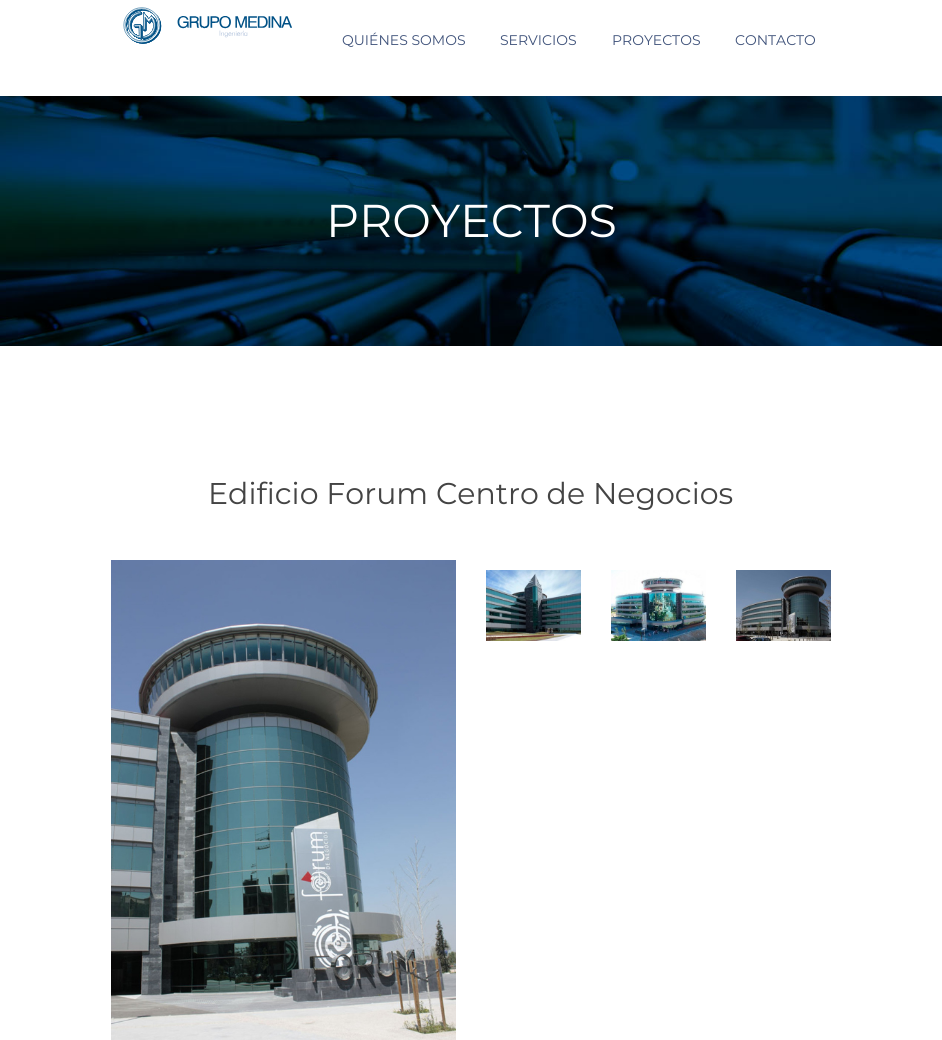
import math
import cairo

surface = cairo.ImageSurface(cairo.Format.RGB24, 942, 1040)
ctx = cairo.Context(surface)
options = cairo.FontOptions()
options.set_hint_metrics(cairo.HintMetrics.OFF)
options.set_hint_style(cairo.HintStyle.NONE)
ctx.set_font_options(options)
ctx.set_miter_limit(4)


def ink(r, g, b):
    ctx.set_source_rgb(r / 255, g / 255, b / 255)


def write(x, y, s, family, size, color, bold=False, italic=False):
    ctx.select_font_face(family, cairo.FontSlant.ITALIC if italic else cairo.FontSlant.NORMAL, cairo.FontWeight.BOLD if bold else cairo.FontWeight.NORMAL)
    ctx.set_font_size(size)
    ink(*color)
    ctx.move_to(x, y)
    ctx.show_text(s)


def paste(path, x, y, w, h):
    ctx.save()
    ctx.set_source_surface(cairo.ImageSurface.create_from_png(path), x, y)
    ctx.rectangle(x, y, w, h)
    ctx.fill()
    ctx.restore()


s1 = dict(family="Montserrat", size=14, color=(63, 82, 122))
s2 = dict(family="Montserrat", size=46, color=(255, 255, 255))
s3 = dict(family="Montserrat", size=30, color=(68, 68, 68))

ink(255, 255, 255)
ctx.paint()
paste("pic1.png", 123, 7, 169, 37)
write(342, 45, "QUIÉNES SOMOS", **s1)
write(500, 45, "SERVICIOS", **s1)
write(612, 45, "PROYECTOS", **s1)
write(735, 45, "CONTACTO", **s1)
paste("pic2.png", 0, 96, 942, 250)
write(326, 237, "PROYECTOS", **s2)
write(208, 504, "Edificio Forum Centro de Negocios", **s3)
paste("pic3.png", 111, 560, 345, 480)
paste("pic4.png", 486, 570, 95, 71)
paste("pic5.png", 611, 570, 95, 71)
paste("pic6.png", 736, 570, 95, 71)
surface.write_to_png("screenshot.png")
